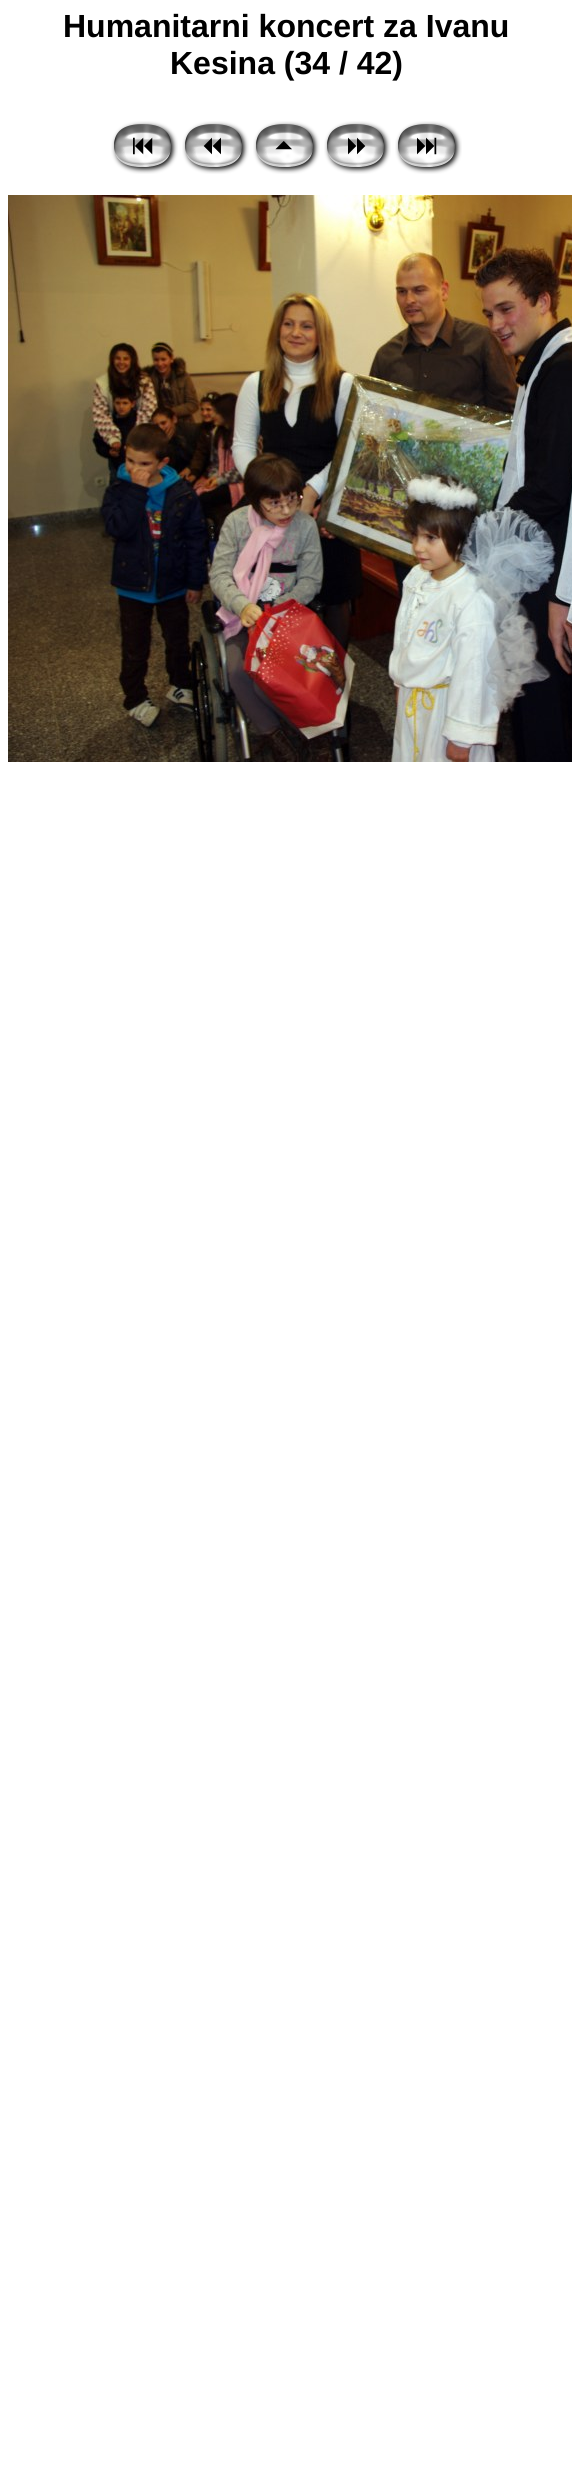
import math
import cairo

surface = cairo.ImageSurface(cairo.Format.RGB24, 572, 2466)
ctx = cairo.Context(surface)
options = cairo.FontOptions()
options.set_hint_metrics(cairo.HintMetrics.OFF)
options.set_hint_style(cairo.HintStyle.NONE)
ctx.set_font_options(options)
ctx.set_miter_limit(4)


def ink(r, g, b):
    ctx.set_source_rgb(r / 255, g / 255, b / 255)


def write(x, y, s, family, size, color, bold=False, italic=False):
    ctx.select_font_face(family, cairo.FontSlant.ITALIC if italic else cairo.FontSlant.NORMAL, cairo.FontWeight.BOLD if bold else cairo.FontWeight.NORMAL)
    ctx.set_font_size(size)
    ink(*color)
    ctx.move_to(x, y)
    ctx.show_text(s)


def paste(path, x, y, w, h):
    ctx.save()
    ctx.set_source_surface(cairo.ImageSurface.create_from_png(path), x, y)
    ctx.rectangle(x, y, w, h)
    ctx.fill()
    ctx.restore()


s1 = dict(family="Liberation Sans", size=32, color=(0, 0, 0), bold=True)

ink(255, 255, 255)
ctx.paint()
write(63, 37, "Humanitarni koncert za Ivanu", **s1)
write(170, 74, "Kesina (34 / 42)", **s1)
paste("pic1.png", 111, 121, 67, 53)
paste("pic2.png", 182, 121, 67, 53)
paste("pic3.png", 253, 121, 67, 53)
paste("pic4.png", 324, 121, 67, 53)
paste("pic5.png", 395, 121, 67, 53)
paste("pic6.png", 8, 195, 564, 567)
surface.write_to_png("screenshot.png")
